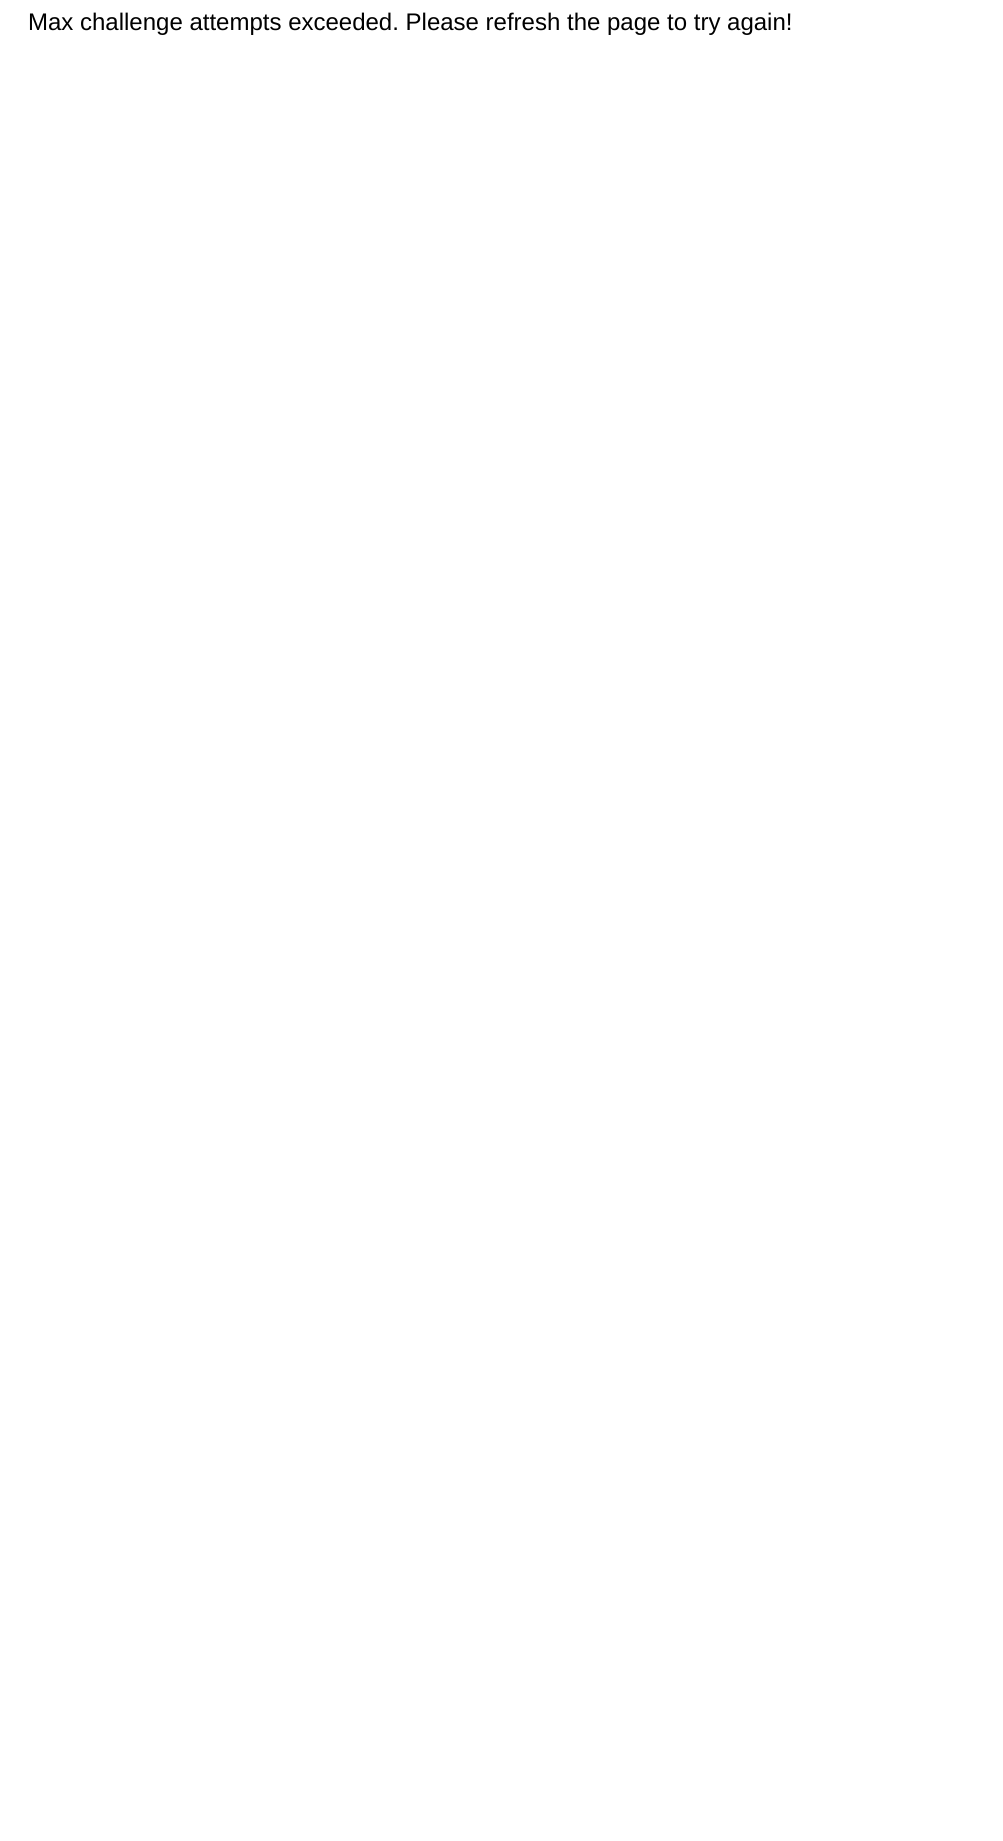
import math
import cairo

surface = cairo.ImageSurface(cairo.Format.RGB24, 1003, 1841)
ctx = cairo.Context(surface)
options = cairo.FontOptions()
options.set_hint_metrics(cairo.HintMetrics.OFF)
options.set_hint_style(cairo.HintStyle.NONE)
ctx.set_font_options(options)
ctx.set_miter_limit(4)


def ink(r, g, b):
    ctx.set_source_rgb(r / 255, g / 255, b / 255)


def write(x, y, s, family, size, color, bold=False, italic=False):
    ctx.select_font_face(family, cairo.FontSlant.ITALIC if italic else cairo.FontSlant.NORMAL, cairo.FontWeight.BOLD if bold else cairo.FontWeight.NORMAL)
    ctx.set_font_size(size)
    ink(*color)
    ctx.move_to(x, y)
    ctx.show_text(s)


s1 = dict(family="Liberation Sans", size=24, color=(0, 0, 0))

ink(255, 255, 255)
ctx.paint()
write(28, 30, "Max challenge attempts exceeded. Please refresh the page to try again!", **s1)
surface.write_to_png("screenshot.png")
